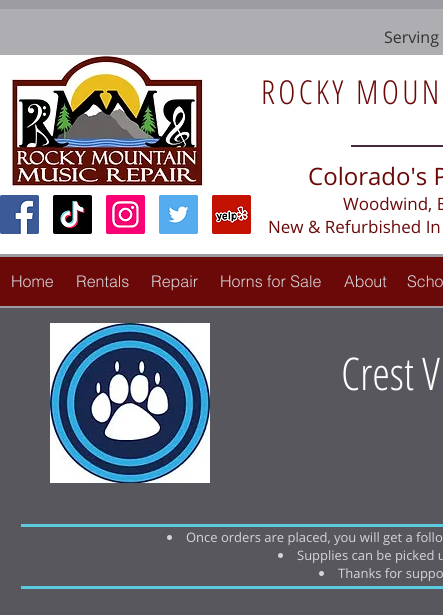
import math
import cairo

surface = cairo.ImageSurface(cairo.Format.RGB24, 443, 615)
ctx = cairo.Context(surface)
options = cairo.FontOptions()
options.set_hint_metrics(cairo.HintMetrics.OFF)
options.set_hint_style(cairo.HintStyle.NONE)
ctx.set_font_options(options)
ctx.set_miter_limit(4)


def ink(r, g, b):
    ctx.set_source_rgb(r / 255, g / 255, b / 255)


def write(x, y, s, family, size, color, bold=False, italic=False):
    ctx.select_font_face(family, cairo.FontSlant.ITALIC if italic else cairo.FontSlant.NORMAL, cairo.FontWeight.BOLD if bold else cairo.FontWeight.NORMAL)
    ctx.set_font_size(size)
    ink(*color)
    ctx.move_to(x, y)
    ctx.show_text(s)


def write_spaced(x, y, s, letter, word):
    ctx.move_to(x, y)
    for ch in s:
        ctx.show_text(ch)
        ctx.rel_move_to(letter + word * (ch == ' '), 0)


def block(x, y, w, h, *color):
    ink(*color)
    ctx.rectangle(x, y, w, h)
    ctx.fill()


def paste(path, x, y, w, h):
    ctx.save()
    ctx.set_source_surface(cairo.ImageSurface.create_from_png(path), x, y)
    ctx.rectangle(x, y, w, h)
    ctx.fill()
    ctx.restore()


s1 = dict(family="Open Sans", size=16, color=(50, 50, 50))
s2 = dict(family="Open Sans", size=24, color=(107, 9, 9))
s3 = dict(family="Open Sans", size=17, color=(107, 9, 9))
s4 = dict(family="helvetica Light", size=16, color=(213, 212, 216))
s5 = dict(family="Open Sans Condensed Light", size=45, color=(255, 255, 255))
s6 = dict(family="Open Sans", size=13, color=(213, 212, 216))

ink(157, 156, 162)
ctx.paint()
block(0, 9, 443, 46, 173, 173, 178)
write(384, 43, "Serving", **s1)
block(0, 55, 443, 199, 255, 255, 255)
paste("pic1.png", 11, 55, 194, 135)
ctx.select_font_face("Open Sans Condensed Light")
ctx.set_font_size(33)
ink(107, 9, 9)
write_spaced(261, 104, "ROCKY MOUN", 3.25, 0)
block(351, 145, 92, 2, 71, 41, 65)
paste("pic2.png", 0, 195, 39, 39)
paste("pic3.png", 53, 195, 39, 39)
paste("pic4.png", 106, 195, 39, 39)
paste("pic5.png", 159, 195, 39, 39)
paste("pic6.png", 212, 195, 39, 39)
write(308, 185, "Colorado's P", **s2)
write(343, 210, "Woodwind, B", **s3)
write(268, 233, "New & Refurbished In", **s3)
block(0, 257, 443, 49, 107, 9, 9)
write(11, 287, "Home", **s4)
write(76, 287, "Rentals", **s4)
write(151, 287, "Repair", **s4)
write(220, 287, "Horns for Sale", **s4)
write(344, 287, "About", **s4)
write(407, 287, "Scho", **s4)
block(0, 308, 443, 307, 88, 87, 93)
paste("pic7.png", 50, 323, 160, 160)
write(341, 390, "Crest V", **s5)
block(21, 524, 422, 3, 91, 201, 222)
ink(213, 212, 216)
ctx.new_path()
ctx.arc(169.5, 537.5, 2.5, 0, 2 * math.pi)
ctx.fill()
write(186, 542, "Once orders are placed, you will get a follo", **s6)
ctx.new_path()
ctx.arc(280.5, 555.5, 2.5, 0, 2 * math.pi)
ctx.fill()
write(297, 560, "Supplies can be picked u", **s6)
ctx.new_path()
ctx.arc(321.5, 573.5, 2.5, 0, 2 * math.pi)
ctx.fill()
write(338, 578, "Thanks for suppo", **s6)
block(21, 586, 422, 3, 91, 201, 222)
surface.write_to_png("screenshot.png")
